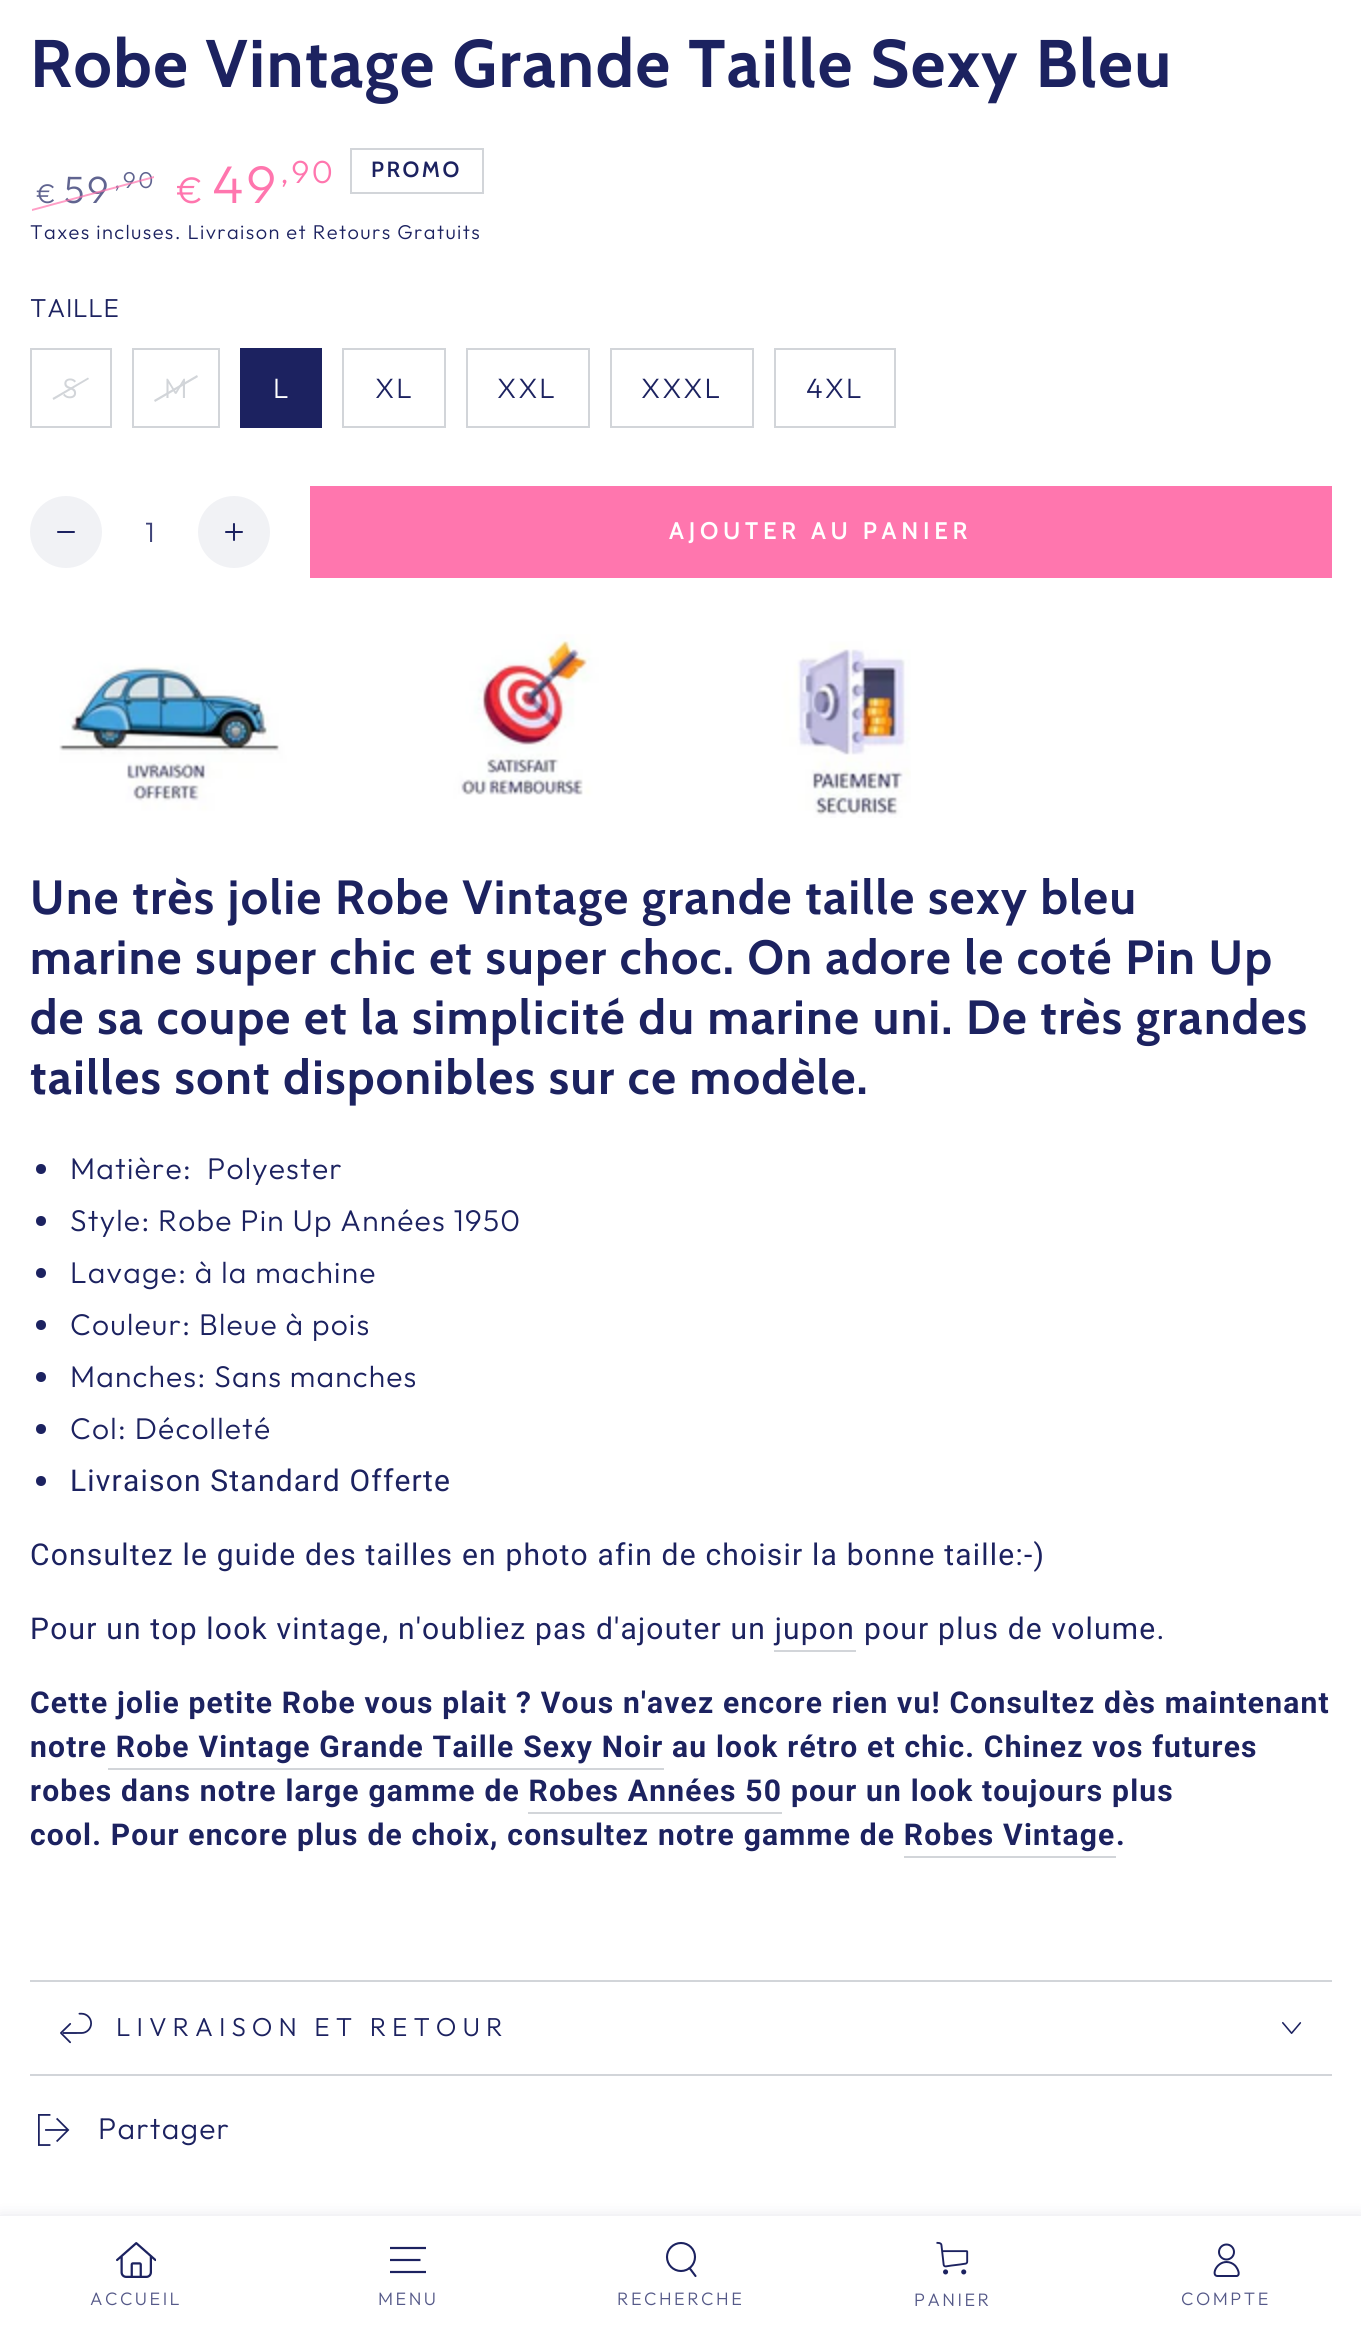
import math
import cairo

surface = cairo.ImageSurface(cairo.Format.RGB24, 1361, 2336)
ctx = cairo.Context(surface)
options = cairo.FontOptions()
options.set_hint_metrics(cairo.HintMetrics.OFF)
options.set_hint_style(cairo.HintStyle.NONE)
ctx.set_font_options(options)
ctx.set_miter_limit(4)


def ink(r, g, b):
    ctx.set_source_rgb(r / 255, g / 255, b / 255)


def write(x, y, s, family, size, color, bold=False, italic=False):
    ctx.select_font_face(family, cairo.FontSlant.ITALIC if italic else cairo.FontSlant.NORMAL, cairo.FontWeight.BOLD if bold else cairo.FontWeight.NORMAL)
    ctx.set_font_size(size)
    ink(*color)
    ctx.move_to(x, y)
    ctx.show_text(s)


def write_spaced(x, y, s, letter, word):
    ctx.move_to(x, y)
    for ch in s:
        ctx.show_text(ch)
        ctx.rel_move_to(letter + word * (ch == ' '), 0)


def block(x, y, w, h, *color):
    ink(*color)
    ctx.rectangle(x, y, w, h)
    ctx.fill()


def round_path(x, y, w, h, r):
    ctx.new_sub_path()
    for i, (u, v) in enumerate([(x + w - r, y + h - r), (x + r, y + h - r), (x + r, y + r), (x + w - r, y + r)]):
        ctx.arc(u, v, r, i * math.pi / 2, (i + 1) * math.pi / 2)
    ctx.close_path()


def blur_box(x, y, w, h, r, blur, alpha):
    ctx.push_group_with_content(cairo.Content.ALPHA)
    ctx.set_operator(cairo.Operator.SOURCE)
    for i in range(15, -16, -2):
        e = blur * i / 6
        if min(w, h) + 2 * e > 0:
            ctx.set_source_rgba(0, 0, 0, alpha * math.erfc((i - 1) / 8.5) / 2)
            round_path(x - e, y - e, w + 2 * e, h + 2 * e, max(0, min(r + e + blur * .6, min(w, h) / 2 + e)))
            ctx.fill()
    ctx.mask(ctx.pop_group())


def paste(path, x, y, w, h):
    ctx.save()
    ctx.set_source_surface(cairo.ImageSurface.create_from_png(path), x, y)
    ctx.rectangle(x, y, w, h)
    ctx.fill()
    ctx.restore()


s1 = dict(family="Outfit Light", size=28, color=(62, 67, 120))

ink(255, 255, 255)
ctx.paint()
ctx.select_font_face("Cabin", cairo.FontSlant.NORMAL, cairo.FontWeight.BOLD)
ctx.set_font_size(67.25)
ink(28, 34, 96)
write_spaced(30, 87, "Robe Vintage Grande Taille Sexy Bleu", 1.45, 0)
ctx.select_font_face("Outfit Light")
ctx.set_font_size(23)
ink(96, 100, 144)
write_spaced(114, 188, ",90", 2.5, 0)
ctx.set_font_size(27)
write_spaced(36, 203, "€", 2.5, 0)
ctx.set_font_size(38)
write_spaced(64, 203, "59", 2.5, 0)
ctx.set_source_rgba(1, 0.463, 0.682, 0.7)
ctx.new_path()
ctx.move_to(32, 209)
ctx.line_to(154, 176)
ctx.line_to(154, 178)
ctx.line_to(32, 211)
ctx.close_path()
ctx.fill()
ctx.set_font_size(37)
ink(255, 118, 174)
write_spaced(176, 203, "€", 2.5, 0)
ctx.set_font_size(53)
write_spaced(212, 203, "49", 2.5, 0)
ctx.set_font_size(32)
write_spaced(280, 183, ",90", 2.5, 0)
ctx.rectangle(351, 149, 132, 44)
ink(210, 213, 217)
ctx.stroke()
ctx.select_font_face("Cabin SemiBold")
ctx.set_font_size(22)
ink(28, 34, 96)
write_spaced(371, 177, "PROMO", 2.5, 0)
ctx.select_font_face("Outfit Light")
ctx.set_font_size(20)
write_spaced(30, 239, "Taxes incluses. Livraison et Retours Gratuits", 1.4, 0)
ctx.set_font_size(26)
write_spaced(30, 317, "TAILLE", 0.75, 0)
ctx.rectangle(31, 349, 80, 78)
ink(210, 213, 217)
ctx.stroke()
ctx.new_path()
ctx.move_to(52.5, 398)
ctx.line_to(88, 377.5)
ctx.line_to(89, 379)
ctx.line_to(53.5, 400)
ctx.close_path()
ctx.fill()
ctx.set_font_size(28)
write_spaced(62, 398, "S", 2, 0)
ctx.rectangle(133, 349, 86, 78)
ctx.stroke()
ctx.new_path()
ctx.move_to(154, 400)
ctx.line_to(197, 375)
ctx.line_to(198, 377)
ctx.line_to(155, 402)
ctx.close_path()
ctx.fill()
write_spaced(164, 398, "M", 2, 0)
block(240, 348, 82, 80, 28, 34, 96)
ink(255, 255, 255)
write_spaced(273, 398, "L", 2, 0)
ctx.rectangle(343, 349, 102, 78)
ink(210, 213, 217)
ctx.stroke()
ink(28, 34, 96)
write_spaced(375, 398, "XL", 2, 0)
ctx.rectangle(467, 349, 122, 78)
ink(210, 213, 217)
ctx.stroke()
ink(28, 34, 96)
write_spaced(497, 398, "XXL", 2, 0)
ctx.rectangle(611, 349, 142, 78)
ink(210, 213, 217)
ctx.stroke()
ink(28, 34, 96)
write_spaced(641, 398, "XXXL", 2, 0)
ctx.rectangle(775, 349, 120, 78)
ink(210, 213, 217)
ctx.stroke()
ink(28, 34, 96)
write_spaced(806, 398, "4XL", 2, 0)
ink(241, 242, 245)
ctx.new_path()
ctx.arc(66, 532, 36, 0, 2 * math.pi)
ctx.fill()
paste("pic1.png", 57, 531, 18, 2)
write(145, 542, "1", **s1)
ink(241, 242, 245)
ctx.new_path()
ctx.arc(234, 532, 36, 0, 2 * math.pi)
ctx.fill()
paste("pic2.png", 225, 523, 18, 18)
block(310, 486, 1022, 92, 255, 118, 174)
ctx.select_font_face("Cabin SemiBold")
ctx.set_font_size(24)
ink(255, 255, 255)
write_spaced(669, 539, "AJOUTER AU PANIER", 4.75, 0)
paste("pic3.png", 59, 634, 852, 184)
ctx.select_font_face("Cabin", cairo.FontSlant.NORMAL, cairo.FontWeight.BOLD)
ctx.set_font_size(48)
ink(28, 34, 96)
write_spaced(30, 914, "Une très jolie Robe Vintage grande taille sexy bleu", 1.45, 0)
write_spaced(30, 974, "marine super chic et super choc. On adore le coté Pin Up", 1.45, 0)
write_spaced(30, 1034, "de sa coupe et la simplicité du marine uni. De très grandes", 1.45, 0)
write_spaced(30, 1094, "tailles sont disponibles sur ce modèle.", 1.45, 0)
ctx.new_path()
ctx.arc(41, 1169, 5, 0, 2 * math.pi)
ctx.fill()
ctx.select_font_face("Outfit Light")
ctx.set_font_size(30)
write_spaced(70, 1179, "Matière:", 1.2, 0)
write_spaced(207, 1179, "Polyester", 1.2, 0)
ctx.new_path()
ctx.arc(41, 1221, 5, 0, 2 * math.pi)
ctx.fill()
write_spaced(70, 1231, "Style: Robe Pin Up Années 1950", 1.2, 0)
ctx.new_path()
ctx.arc(41, 1273, 5, 0, 2 * math.pi)
ctx.fill()
write_spaced(70, 1283, "Lavage: à la machine", 1.2, 0)
ctx.new_path()
ctx.arc(41, 1325, 5, 0, 2 * math.pi)
ctx.fill()
write_spaced(70, 1335, "Couleur: Bleue à pois", 1.2, 0)
ctx.new_path()
ctx.arc(41, 1377, 5, 0, 2 * math.pi)
ctx.fill()
write_spaced(70, 1387, "Manches: Sans manches", 1.2, 0)
ctx.new_path()
ctx.arc(41, 1429, 5, 0, 2 * math.pi)
ctx.fill()
write_spaced(70, 1439, "Col: Décolleté", 1.2, 0)
ctx.new_path()
ctx.arc(41, 1481, 5, 0, 2 * math.pi)
ctx.fill()
ctx.select_font_face("Roboto")
write_spaced(70, 1491, "Livraison Standard Offerte", 1.2, 0)
write_spaced(30, 1565, "Consultez le guide des tailles en photo afin de choisir la bonne taille:-)", 1.2, 0)
write_spaced(30, 1639, "Pour un top look vintage, n'oubliez pas d'ajouter un jupon", 1.2, 0)
block(774, 1650, 82, 2, 210, 213, 217)
ink(28, 34, 96)
write_spaced(864, 1639, "pour plus de volume.", 1.2, 0)
ctx.select_font_face("Roboto", cairo.FontSlant.NORMAL, cairo.FontWeight.BOLD)
write_spaced(30, 1713, "Cette jolie petite Robe vous plait ? Vous n'avez encore rien vu! Consultez dès maintenant", 1.2, 0)
write_spaced(30, 1757, "notre Robe Vintage Grande Taille Sexy Noir", 1.2, 0)
block(108, 1768, 556, 2, 210, 213, 217)
ink(28, 34, 96)
write_spaced(672, 1757, "au look rétro et chic. Chinez vos futures", 1.2, 0)
write_spaced(30, 1801, "robes dans notre large gamme de Robes Années 50", 1.2, 0)
block(528, 1812, 254, 2, 210, 213, 217)
ink(28, 34, 96)
write_spaced(791, 1801, "pour un look toujours plus", 1.2, 0)
write_spaced(30, 1845, "cool. Pour encore plus de choix, consultez notre gamme de Robes Vintage", 1.2, 0)
write_spaced(1116, 1845, ".", 1.2, 0)
block(904, 1856, 212, 2, 210, 213, 217)
block(30, 1980, 1302, 2, 210, 213, 217)
block(30, 2074, 1302, 2, 210, 213, 217)
paste("pic4.png", 60, 2012, 32, 32)
ctx.select_font_face("Outfit Light")
ctx.set_font_size(26)
ink(28, 34, 96)
write_spaced(116, 2036, "LIVRAISON ET RETOUR", 6, 0)
paste("pic5.png", 1282, 2022, 20, 12)
paste("pic6.png", 38, 2114, 32, 32)
ctx.set_font_size(30)
write_spaced(98, 2139, "Partager", 1.2, 0)
ink(28, 34, 96)
blur_box(0, 2218, 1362, 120, 0, 8, 0.15)
block(0, 2216, 1361, 120, 255, 255, 255)
paste("pic7.png", 116, 2242, 40, 36)
ctx.set_font_size(18)
ink(85, 89, 136)
write_spaced(90, 2305, "ACCUEIL", 2.5, 0)
ctx.new_path()
ctx.move_to(390, 2272)
ctx.line_to(426, 2272)
ctx.move_to(390, 2260)
ctx.line_to(420.5, 2260)
ctx.move_to(390, 2248)
ctx.line_to(426, 2248)
ink(28, 34, 96)
ctx.set_line_width(2.2)
ctx.stroke()
ink(85, 89, 136)
write_spaced(378, 2305, "MENU", 2.5, 0)
ctx.new_path()
ctx.arc(681, 2257, 14, 0, 2 * math.pi)
ink(28, 34, 96)
ctx.set_line_width(2.1)
ctx.stroke()
ctx.new_path()
ctx.move_to(689.5, 2268)
ctx.line_to(695.5, 2276)
ctx.set_line_cap(cairo.LineCap.ROUND)
ctx.stroke()
ink(85, 89, 136)
write_spaced(617, 2305, "RECHERCHE", 2.5, 0)
paste("pic8.png", 936, 2241, 33, 34)
write_spaced(914, 2306, "PANIER", 2.5, 0)
ctx.new_path()
ctx.move_to(1226.5, 2262)
ctx.curve_to(1216, 2262, 1211, 2276, 1217.5, 2276)
ctx.line_to(1237, 2276)
ctx.curve_to(1241, 2274.5, 1237, 2267.5, 1235, 2265.5)
ctx.curve_to(1233, 2263.5, 1230, 2262, 1226.5, 2262)
ctx.close_path()
ink(28, 34, 96)
ctx.set_line_width(2)
ctx.set_line_cap(cairo.LineCap.BUTT)
ctx.stroke()
ctx.arc(1226.5, 2252, 7.5, 0, 2 * math.pi)
ctx.stroke()
ink(85, 89, 136)
write_spaced(1181, 2305, "COMPTE", 2.5, 0)
surface.write_to_png("screenshot.png")
